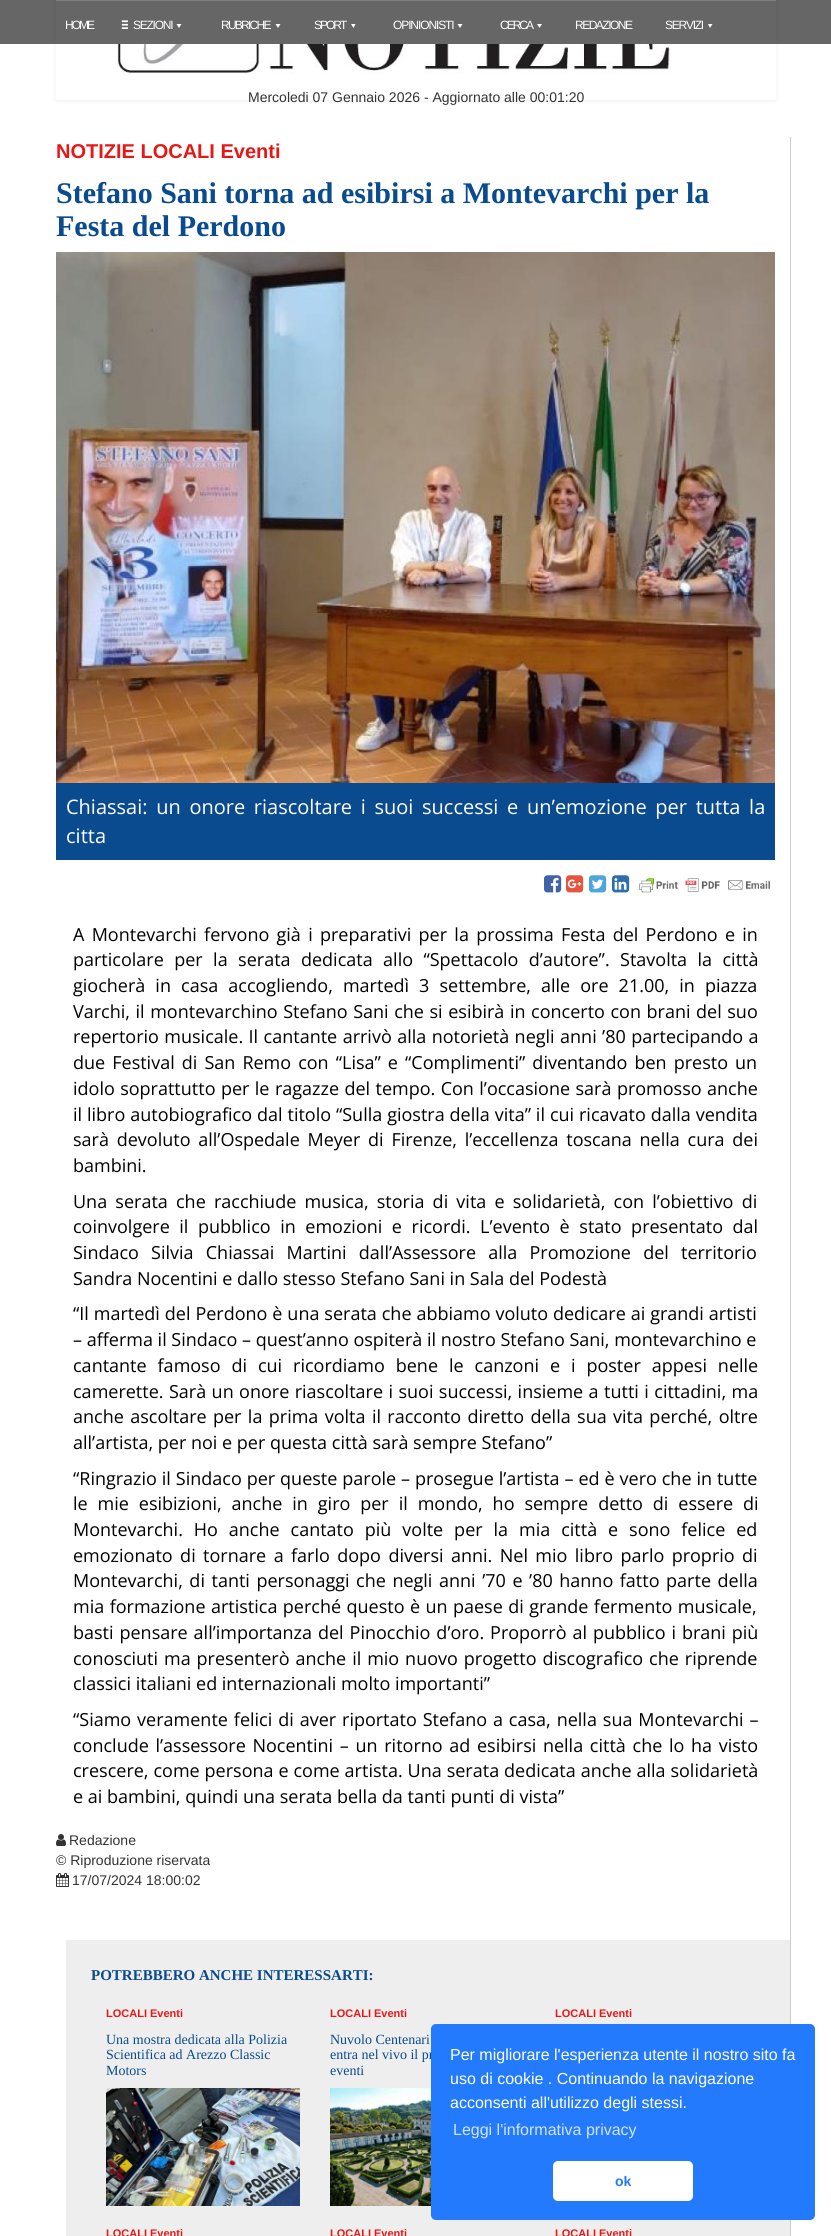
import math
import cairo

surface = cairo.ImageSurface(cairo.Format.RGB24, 831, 2236)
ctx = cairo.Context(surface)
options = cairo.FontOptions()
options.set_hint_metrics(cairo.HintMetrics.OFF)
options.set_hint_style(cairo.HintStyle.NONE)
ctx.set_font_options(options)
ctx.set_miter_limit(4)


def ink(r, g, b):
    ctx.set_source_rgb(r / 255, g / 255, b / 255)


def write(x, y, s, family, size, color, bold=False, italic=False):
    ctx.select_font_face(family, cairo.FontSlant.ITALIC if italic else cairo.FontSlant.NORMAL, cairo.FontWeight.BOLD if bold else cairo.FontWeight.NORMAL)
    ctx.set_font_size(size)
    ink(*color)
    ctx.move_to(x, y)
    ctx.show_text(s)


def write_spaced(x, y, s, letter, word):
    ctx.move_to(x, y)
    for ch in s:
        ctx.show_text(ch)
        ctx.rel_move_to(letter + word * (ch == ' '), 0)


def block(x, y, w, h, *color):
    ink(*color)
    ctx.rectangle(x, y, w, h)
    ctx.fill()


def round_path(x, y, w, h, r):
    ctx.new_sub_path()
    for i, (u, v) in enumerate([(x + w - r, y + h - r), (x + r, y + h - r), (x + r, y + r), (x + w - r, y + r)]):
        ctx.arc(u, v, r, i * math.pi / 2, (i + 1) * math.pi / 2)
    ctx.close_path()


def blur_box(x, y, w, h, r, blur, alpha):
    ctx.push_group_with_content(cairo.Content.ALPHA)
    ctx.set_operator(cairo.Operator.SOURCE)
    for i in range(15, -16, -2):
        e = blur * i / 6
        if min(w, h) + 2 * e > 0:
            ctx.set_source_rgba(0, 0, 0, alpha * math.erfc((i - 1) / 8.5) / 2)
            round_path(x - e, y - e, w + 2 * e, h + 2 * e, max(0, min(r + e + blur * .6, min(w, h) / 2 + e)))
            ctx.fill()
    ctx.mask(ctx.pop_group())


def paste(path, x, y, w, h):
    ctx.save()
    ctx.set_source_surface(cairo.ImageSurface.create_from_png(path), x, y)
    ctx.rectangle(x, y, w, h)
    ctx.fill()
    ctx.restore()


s1 = dict(family="Liberation Sans", size=14, color=(51, 51, 51))
s2 = dict(family="Liberation Sans", size=20, color=(232, 23, 23), bold=True)
s3 = dict(family="Liberation Serif", size=30, color=(9, 75, 142), bold=True)
s4 = dict(family="Open Sans", size=20, color=(255, 255, 255))
s5 = dict(family="Open Sans", size=18, color=(0, 0, 0))
s6 = dict(family="Liberation Serif", size=15, color=(9, 75, 142), bold=True)
s7 = dict(family="Liberation Sans", size=11, color=(232, 23, 23), bold=True)
s8 = dict(family="Liberation Serif", size=14, color=(9, 75, 142))
s9 = dict(family="Liberation Sans", size=16, color=(255, 255, 255))
s10 = dict(family="Liberation Sans", size=16, color=(211, 228, 254))
s11 = dict(family="Liberation Sans", size=14, color=(35, 122, 252), bold=True)

ink(255, 255, 255)
ctx.paint()
block(0, 0, 831, 44, 102, 102, 102)
paste("pic2.png", 117, 44, 555, 30)
ctx.save()
ctx.set_fill_rule(cairo.FillRule.EVEN_ODD)
ctx.new_path()
ctx.move_to(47, 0)
ctx.line_to(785, 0)
ctx.line_to(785, 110)
ctx.line_to(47, 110)
ctx.close_path()
ctx.move_to(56, 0)
ctx.line_to(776, 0)
ctx.line_to(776, 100)
ctx.line_to(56, 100)
ctx.close_path()
ctx.clip()
ink(0, 0, 0)
blur_box(56, 1, 720, 100, 0, 2.5, 0.07)
ctx.restore()
block(56, 0, 720, 1, 125, 125, 125)
ctx.select_font_face("Liberation Sans")
ctx.set_font_size(12)
ink(255, 255, 255)
write_spaced(65, 29, "HOME", -2, 0)
paste("pic1.png", 121, 20, 7, 9)
write_spaced(133, 29, "SEZIONI", -1.25, 0)
ctx.new_path()
ctx.move_to(176.5, 24)
ctx.line_to(181.5, 24)
ctx.line_to(179, 28)
ctx.close_path()
ctx.fill()
write_spaced(221, 29, "RUBRICHE", -1.75, 0)
ctx.new_path()
ctx.move_to(275.5, 24)
ctx.line_to(280.5, 24)
ctx.line_to(278, 28)
ctx.close_path()
ctx.fill()
write_spaced(314, 29, "SPORT", -2, 0)
ctx.new_path()
ctx.move_to(351, 24)
ctx.line_to(355.5, 24)
ctx.line_to(353.5, 28)
ctx.close_path()
ctx.fill()
write_spaced(393, 29, "OPINIONISTI", -1.1, 0)
ctx.new_path()
ctx.move_to(457.5, 24)
ctx.line_to(462.5, 24)
ctx.line_to(460, 28)
ctx.close_path()
ctx.fill()
write_spaced(500, 29, "CERCA", -2, 0)
ctx.new_path()
ctx.move_to(537, 24)
ctx.line_to(542, 24)
ctx.line_to(539.5, 28)
ctx.close_path()
ctx.fill()
write_spaced(575, 29, "REDAZIONE", -1.5, 0)
write_spaced(665, 29, "SERVIZI", -1.25, 0)
ctx.new_path()
ctx.move_to(708, 24)
ctx.line_to(712.5, 24)
ctx.line_to(710, 28)
ctx.close_path()
ctx.fill()
write(248, 102, "Mercoledi 07 Gennaio 2026 - Aggiornato alle 00:01:20", **s1)
block(790, 137, 1, 2099, 204, 204, 204)
write(56, 158, "NOTIZIE LOCALI Eventi", **s2)
write(56, 203, "Stefano Sani torna ad esibirsi a Montevarchi per la", **s3)
write(56, 236, "Festa del Perdono", **s3)
paste("pic3.png", 56, 252, 719, 531)
block(56, 783, 719, 77, 9, 75, 142)
ctx.select_font_face("Open Sans")
ctx.set_font_size(20)
ink(255, 255, 255)
write_spaced(66, 814, "Chiassai: un onore riascoltare i suoi successi e un’emozione per tutta la", 0, 3.5)
write(66, 843, "citta", **s4)
paste("pic4.png", 544, 875, 18, 18)
paste("pic5.png", 566, 875, 18, 18)
paste("pic6.png", 589, 875, 18, 18)
paste("pic7.png", 612, 875, 18, 18)
paste("pic8.png", 639, 878, 131, 15)
ctx.set_font_size(18)
ink(0, 0, 0)
write_spaced(73, 941, "A Montevarchi fervono già i preparativi per la prossima Festa del Perdono e in", 0, 2.6)
write_spaced(73, 966, "particolare per la serata dedicata allo “Spettacolo d’autore”. Stavolta la città", 0, 5.75)
write_spaced(73, 992, "giocherà in casa accogliendo, martedì 3 settembre, alle ore 21.00, in piazza", 0, 5.4)
write_spaced(73, 1018, "Varchi, il montevarchino Stefano Sani che si esibirà in concerto con brani del suo", 0, 0.9)
write_spaced(73, 1043, "repertorio musicale. Il cantante arrivò alla notorietà negli anni ’80 partecipando a", 0, 0.75)
write_spaced(73, 1069, "due Festival di San Remo con “Lisa” e “Complimenti” diventando ben presto un", 0, 2.4)
write_spaced(73, 1095, "idolo soprattutto per le ragazze del tempo. Con l’occasione sarà promosso anche", 0, 0.75)
write_spaced(73, 1121, "il libro autobiografico dal titolo “Sulla giostra della vita” il cui ricavato dalla vendita", 0, 0.25)
write_spaced(73, 1146, "sarà devoluto all’Ospedale Meyer di Firenze, l’eccellenza toscana nella cura dei", 0, 3.1)
write(73, 1172, "bambini.", **s5)
write_spaced(73, 1208, "Una serata che racchiude musica, storia di vita e solidarietà, con l’obiettivo di", 0, 3.5)
write_spaced(73, 1233, "coinvolgere il pubblico in emozioni e ricordi. L’evento è stato presentato dal", 0, 4.9)
write_spaced(73, 1259, "Sindaco Silvia Chiassai Martini dall’Assessore alla Promozione del territorio", 0, 7.5)
write(73, 1285, "Sandra Nocentini e dallo stesso Stefano Sani in Sala del Podestà", **s5)
write_spaced(73, 1320, "“Il martedì del Perdono è una serata che abbiamo voluto dedicare ai grandi artisti", 0, 0.25)
write(73, 1346, "– afferma il Sindaco – quest’anno ospiterà il nostro Stefano Sani, montevarchino e", **s5)
write_spaced(73, 1372, "cantante famoso di cui ricordiamo bene le canzoni e i poster appesi nelle", 0, 6.25)
write_spaced(73, 1398, "camerette. Sarà un onore riascoltare i suoi successi, insieme a tutti i cittadini, ma", 0, 0.75)
write_spaced(73, 1423, "anche ascoltare per la prima volta il racconto diretto della sua vita perché, oltre", 0, 1.7)
write(73, 1449, "all’artista, per noi e per questa città sarà sempre Stefano”", **s5)
write_spaced(73, 1485, "“Ringrazio il Sindaco per queste parole – prosegue l’artista – ed è vero che in tutte", 0, 0.25)
write_spaced(73, 1510, "le mie esibizioni, anche in giro per il mondo, ho sempre detto di essere di", 0, 5.25)
write_spaced(73, 1536, "Montevarchi. Ho anche cantato più volte per la mia città e sono felice ed", 0, 6.25)
write_spaced(73, 1562, "emozionato di tornare a farlo dopo diversi anni. Nel mio libro parlo proprio di", 0, 2.75)
write_spaced(73, 1587, "Montevarchi, di tanti personaggi che negli anni ’70 e ’80 hanno fatto parte della", 0, 1.9)
write_spaced(73, 1613, "mia formazione artistica perché questo è un paese di grande fermento musicale,", 0, 0.75)
write_spaced(73, 1639, "basti pensare all’importanza del Pinocchio d’oro. Proporrò al pubblico i brani più", 0, 1.25)
write_spaced(73, 1665, "conosciuti ma presenterò anche il mio nuovo progetto discografico che riprende", 0, 1.25)
write(73, 1690, "classici italiani ed internazionali molto importanti”", **s5)
write_spaced(73, 1726, "“Siamo veramente felici di aver riportato Stefano a casa, nella sua Montevarchi –", 0, 1.25)
write_spaced(73, 1752, "conclude l’assessore Nocentini – un ritorno ad esibirsi nella città che lo ha visto", 0, 2)
write_spaced(73, 1777, "crescere, come persona e come artista. Una serata dedicata anche alla solidarietà", 0, 0.25)
write(73, 1803, "e ai bambini, quindi una serata bella da tanti punti di vista”", **s5)
paste("pic9.png", 56, 1834, 10, 12)
write(69, 1845, "Redazione", **s1)
write(56, 1865, "© Riproduzione riservata", **s1)
paste("pic10.png", 56, 1873, 13, 14)
write(72, 1885, "17/07/2024 18:00:02", **s1)
block(66, 1940, 724, 296, 238, 238, 238)
write(91, 1980, "POTREBBERO ANCHE INTERESSARTI:", **s6)
write(106, 2017, "LOCALI Eventi", **s7)
write(106, 2044, "Una mostra dedicata alla Polizia", **s8)
write(106, 2059, "Scientifica ad Arezzo Classic", **s8)
write(106, 2075, "Motors", **s8)
paste("pic11.png", 106, 2088, 194, 118)
write(330, 2017, "LOCALI Eventi", **s7)
write(330, 2044, "Nuvolo Centenari", **s8)
write(330, 2059, "entra nel vivo il pr", **s8)
write(330, 2075, "eventi", **s8)
paste("pic12.png", 330, 2088, 101, 118)
write(555, 2017, "LOCALI Eventi", **s7)
write(106, 2237, "LOCALI Eventi", **s7)
write(330, 2237, "LOCALI Eventi", **s7)
write(555, 2237, "LOCALI Eventi", **s7)
ink(35, 122, 252)
round_path(431, 2024, 384, 196, 5)
ctx.fill()
write(450, 2060, "Per migliorare l'esperienza utente il nostro sito fa", **s9)
write(450, 2084, "uso di cookie . Continuando la navigazione", **s9)
write(450, 2108, "acconsenti all'utilizzo degli stessi.", **s9)
write(453, 2135, "Leggi l'informativa privacy", **s10)
ink(255, 255, 255)
round_path(553, 2161, 140, 40, 5)
ctx.fill()
write(615, 2186, "ok", **s11)
surface.write_to_png("screenshot.png")
